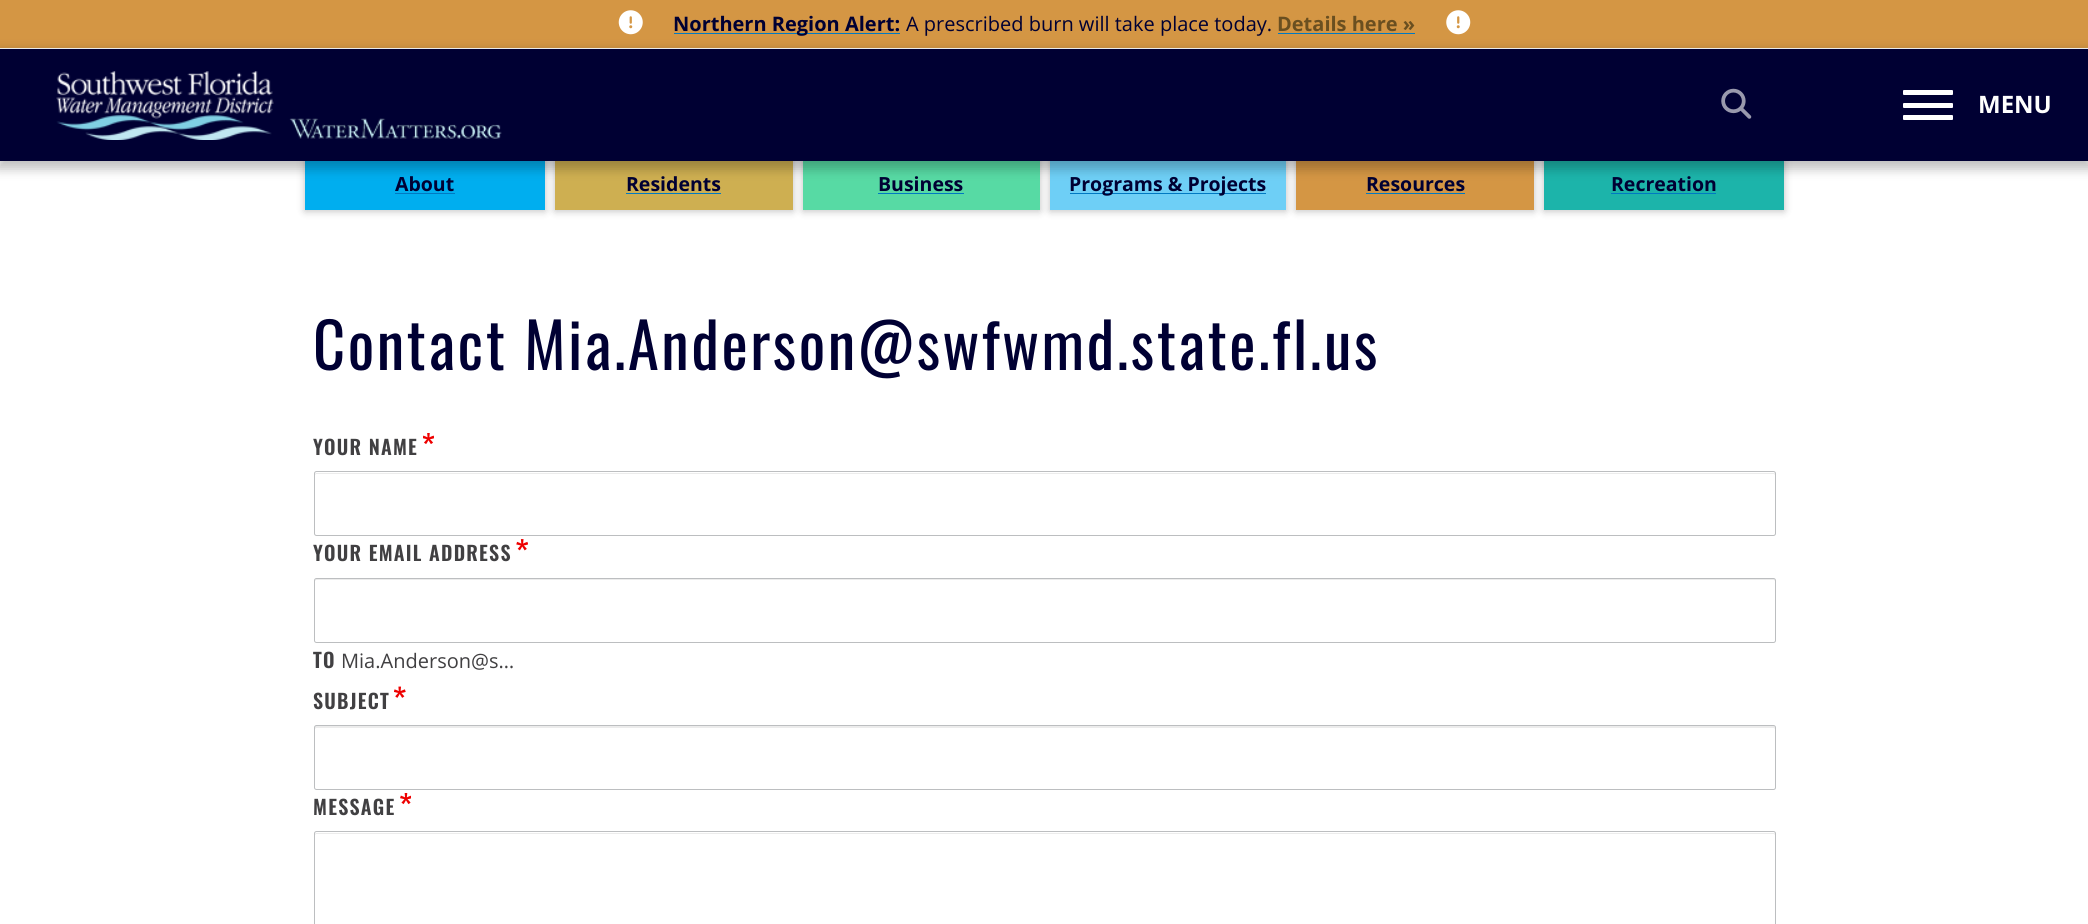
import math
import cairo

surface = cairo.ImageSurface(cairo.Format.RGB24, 2088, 924)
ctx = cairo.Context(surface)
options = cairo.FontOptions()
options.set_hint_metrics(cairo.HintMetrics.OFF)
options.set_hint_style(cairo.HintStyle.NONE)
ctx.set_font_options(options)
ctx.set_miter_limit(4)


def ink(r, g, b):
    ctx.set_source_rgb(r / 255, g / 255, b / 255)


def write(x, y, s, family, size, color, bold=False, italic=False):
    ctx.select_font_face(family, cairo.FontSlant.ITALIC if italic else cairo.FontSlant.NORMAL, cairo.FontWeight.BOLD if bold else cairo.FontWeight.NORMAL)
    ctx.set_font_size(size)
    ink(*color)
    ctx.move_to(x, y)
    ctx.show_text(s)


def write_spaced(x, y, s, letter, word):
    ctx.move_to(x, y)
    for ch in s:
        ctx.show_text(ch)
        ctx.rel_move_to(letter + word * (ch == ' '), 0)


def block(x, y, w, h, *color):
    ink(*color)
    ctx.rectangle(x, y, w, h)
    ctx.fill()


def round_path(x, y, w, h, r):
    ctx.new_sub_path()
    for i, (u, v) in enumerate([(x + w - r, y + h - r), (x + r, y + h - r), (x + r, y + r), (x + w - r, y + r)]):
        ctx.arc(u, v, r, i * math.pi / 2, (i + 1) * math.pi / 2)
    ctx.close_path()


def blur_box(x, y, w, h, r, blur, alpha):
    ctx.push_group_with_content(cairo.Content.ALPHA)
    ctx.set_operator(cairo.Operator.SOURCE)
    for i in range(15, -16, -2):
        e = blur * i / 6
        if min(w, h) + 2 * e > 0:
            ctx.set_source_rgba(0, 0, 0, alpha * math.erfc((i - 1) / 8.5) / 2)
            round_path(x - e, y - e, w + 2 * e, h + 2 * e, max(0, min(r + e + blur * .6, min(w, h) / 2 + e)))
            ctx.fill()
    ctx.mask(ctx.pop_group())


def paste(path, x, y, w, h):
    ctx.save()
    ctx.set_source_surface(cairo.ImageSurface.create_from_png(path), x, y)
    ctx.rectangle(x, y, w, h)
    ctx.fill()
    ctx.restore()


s1 = dict(family="Open Sans", size=20, color=(0, 0, 51), bold=True)
s2 = dict(family="Open Sans", size=20, color=(0, 0, 51))
s3 = dict(family="Open Sans", size=20, color=(106, 79, 32), bold=True)
s4 = dict(family="Open Sans", size=24, color=(255, 255, 255), bold=True)
s5 = dict(family="Open Sans", size=19.5, color=(0, 0, 51), bold=True)
s6 = dict(family="Open Sans", size=20, color=(65, 64, 66))

ink(255, 255, 255)
ctx.paint()
block(0, 0, 2088, 48, 212, 150, 68)
paste("pic1.png", 618, 10, 25, 25)
block(674, 33, 226, 1, 0, 121, 194)
write(673, 31, "Northern Region Alert:", **s1)
write(906, 31, "A prescribed burn will take place today.", **s2)
write(1277, 31, "Details here »", **s3)
block(1278, 33, 137, 1, 0, 121, 194)
paste("pic2.png", 1446, 10, 25, 25)
ink(0, 0, 0)
blur_box(305, 115, 240, 96, 0, 4, 0.25)
block(305, 161, 240, 49, 0, 174, 239)
ink(0, 0, 0)
blur_box(555, 115, 238, 96, 0, 4, 0.25)
block(555, 161, 238, 49, 206, 175, 81)
ink(0, 0, 0)
blur_box(803, 115, 237, 96, 0, 4, 0.25)
block(803, 161, 237, 49, 87, 218, 164)
ink(0, 0, 0)
blur_box(1050, 115, 236, 96, 0, 4, 0.25)
block(1050, 161, 236, 49, 110, 207, 246)
ink(0, 0, 0)
blur_box(1296, 115, 238, 96, 0, 4, 0.25)
block(1296, 161, 238, 49, 212, 150, 68)
ink(0, 0, 0)
blur_box(1544, 115, 240, 96, 0, 4, 0.25)
block(1544, 161, 240, 49, 28, 180, 170)
ink(0, 0, 0)
blur_box(-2, 51, 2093, 118, 0, 5.5, 0.25)
block(0, 49, 2088, 112, 0, 0, 51)
paste("pic3.png", 56, 71, 446, 69)
paste("pic4.png", 1721, 88, 31, 31)
ink(255, 255, 255)
round_path(1903, 90, 50, 5, 1)
ctx.fill()
round_path(1903, 103, 50, 5, 1)
ctx.fill()
write(1978, 113, "MENU", **s4)
round_path(1903, 115, 50, 5, 1)
ctx.fill()
write(395, 191, "About", **s5)
block(395, 193, 60, 1, 0, 121, 194)
write(626, 191, "Residents", **s5)
block(626, 193, 95, 1, 0, 121, 194)
write(878, 191, "Business", **s5)
block(878, 193, 86, 1, 0, 121, 194)
block(1070, 193, 196, 1, 0, 121, 194)
write(1069, 191, "Programs & Projects", **s5)
write(1366, 191, "Resources", **s5)
block(1366, 193, 99, 1, 0, 121, 194)
write(1611, 191, "Recreation", **s5)
block(1611, 193, 105, 1, 0, 121, 194)
ctx.select_font_face("Oswald")
ctx.set_font_size(62.5)
ink(0, 0, 51)
write_spaced(313, 370, "Contact Mia.Anderson@swfwmd.state.fl.us", 2.5, 0)
ctx.select_font_face("Oswald SemiBold")
ctx.set_font_size(20)
ink(65, 64, 66)
write_spaced(313, 455, "YOUR NAME", 1.25, 0)
paste("pic5.png", 423, 433, 11, 11)
ink(236, 236, 236)
ctx.new_path()
ctx.move_to(316, 474)
ctx.line_to(1774, 474)
ctx.line_to(1775, 475)
ctx.curve_to(1775, 474, 1775, 473, 1774, 473)
ctx.line_to(316, 473)
ctx.line_to(315, 474)
ctx.line_to(315, 475)
ctx.close_path()
ctx.fill()
round_path(314.5, 471.5, 1461, 64, 2)
ink(188, 190, 192)
ctx.set_line_width(1)
ctx.stroke()
ink(65, 64, 66)
write_spaced(313, 561, "YOUR EMAIL ADDRESS", 1.25, 0)
paste("pic6.png", 516, 539, 12, 12)
ink(236, 236, 236)
ctx.new_path()
ctx.move_to(316, 580)
ctx.line_to(1774, 580)
ctx.line_to(1775, 581)
ctx.curve_to(1775, 580, 1775, 579, 1774, 579)
ctx.line_to(316, 579)
ctx.line_to(315, 580)
ctx.line_to(315, 581)
ctx.close_path()
ctx.fill()
round_path(314.5, 578.5, 1461, 64, 2)
ink(188, 190, 192)
ctx.stroke()
ink(65, 64, 66)
write_spaced(313, 668, "TO", 1.25, 0)
write(341, 668, "Mia.Anderson@s…", **s6)
ctx.select_font_face("Oswald SemiBold")
write_spaced(313, 709, "SUBJECT", 1.25, 0)
paste("pic7.png", 394, 686, 12, 12)
ink(236, 236, 236)
ctx.new_path()
ctx.move_to(316, 728)
ctx.line_to(1774, 728)
ctx.line_to(1775, 729)
ctx.line_to(1775, 727)
ctx.line_to(1774, 726)
ctx.line_to(316, 726)
ctx.line_to(315, 726)
ctx.line_to(315, 729)
ctx.close_path()
ctx.fill()
round_path(314.5, 725.5, 1461, 64, 2)
ink(188, 190, 192)
ctx.stroke()
ink(65, 64, 66)
write_spaced(313, 815, "MESSAGE", 1.25, 0)
paste("pic8.png", 400, 793, 11, 12)
ink(236, 236, 236)
ctx.new_path()
ctx.move_to(316, 834)
ctx.line_to(1774, 834)
ctx.line_to(1775, 835)
ctx.curve_to(1775, 834, 1775, 833, 1774, 833)
ctx.line_to(316, 833)
ctx.line_to(315, 834)
ctx.line_to(315, 835)
ctx.close_path()
ctx.fill()
round_path(314.5, 831.5, 1461, 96, 2)
ink(188, 190, 192)
ctx.stroke()
surface.write_to_png("screenshot.png")
